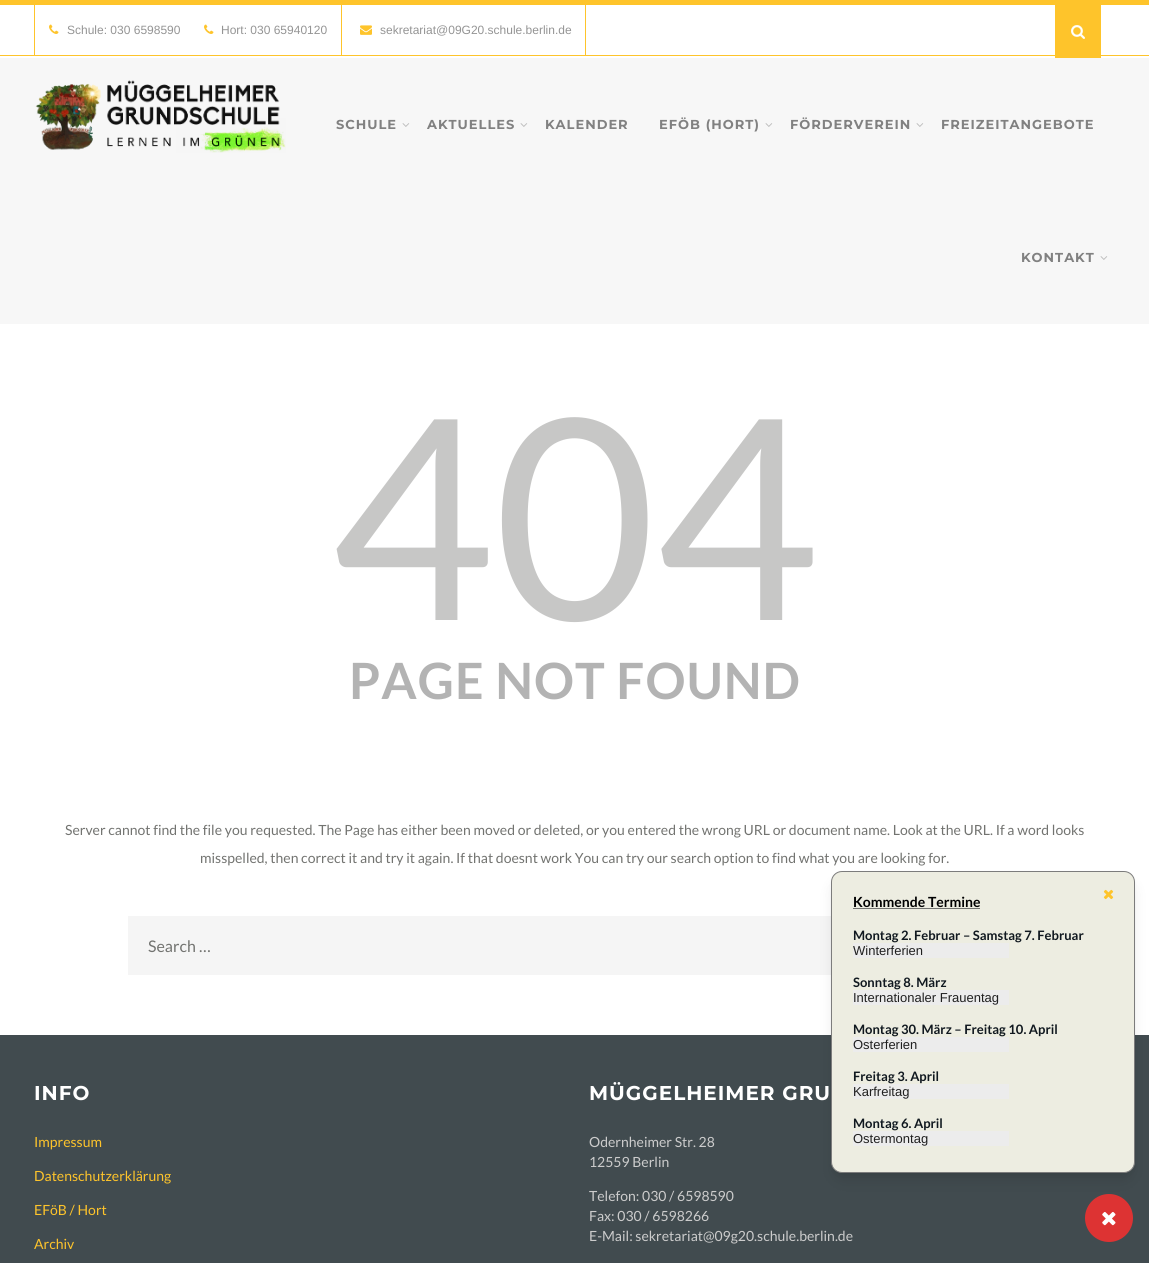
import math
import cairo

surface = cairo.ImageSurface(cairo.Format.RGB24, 1149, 1263)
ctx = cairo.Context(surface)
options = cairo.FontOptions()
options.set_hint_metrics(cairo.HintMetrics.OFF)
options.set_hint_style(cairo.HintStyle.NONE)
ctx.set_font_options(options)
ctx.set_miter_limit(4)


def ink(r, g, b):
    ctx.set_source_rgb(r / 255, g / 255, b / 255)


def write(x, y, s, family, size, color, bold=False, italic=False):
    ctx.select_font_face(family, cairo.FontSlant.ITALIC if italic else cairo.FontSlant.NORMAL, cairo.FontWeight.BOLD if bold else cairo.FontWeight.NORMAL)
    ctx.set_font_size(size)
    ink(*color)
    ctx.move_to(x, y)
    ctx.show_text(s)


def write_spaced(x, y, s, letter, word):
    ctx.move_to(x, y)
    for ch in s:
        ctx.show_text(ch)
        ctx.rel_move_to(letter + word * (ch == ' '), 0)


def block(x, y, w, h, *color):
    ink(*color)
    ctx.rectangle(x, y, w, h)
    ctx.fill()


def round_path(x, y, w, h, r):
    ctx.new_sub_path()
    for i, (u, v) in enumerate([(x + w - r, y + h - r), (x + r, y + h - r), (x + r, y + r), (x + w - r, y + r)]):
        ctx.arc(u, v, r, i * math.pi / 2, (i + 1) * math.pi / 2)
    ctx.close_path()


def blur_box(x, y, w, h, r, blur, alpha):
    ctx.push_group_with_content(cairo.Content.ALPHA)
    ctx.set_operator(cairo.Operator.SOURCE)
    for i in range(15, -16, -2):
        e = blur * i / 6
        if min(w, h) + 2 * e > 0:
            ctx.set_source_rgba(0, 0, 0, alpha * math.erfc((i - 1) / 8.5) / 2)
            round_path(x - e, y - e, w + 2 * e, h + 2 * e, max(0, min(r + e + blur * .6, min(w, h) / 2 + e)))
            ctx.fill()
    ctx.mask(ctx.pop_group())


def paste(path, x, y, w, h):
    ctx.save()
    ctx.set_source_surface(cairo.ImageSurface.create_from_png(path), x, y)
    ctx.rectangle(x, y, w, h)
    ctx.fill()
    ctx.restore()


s1 = dict(family="Arimo", size=12, color=(148, 148, 148))
s2 = dict(family="Lato", size=280, color=(199, 199, 198))
s3 = dict(family="Lato", size=14, color=(114, 115, 112))
s4 = dict(family="Lato", size=16, color=(114, 115, 112))
s5 = dict(family="Lato", size=14, color=(0, 0, 0), bold=True)
s6 = dict(family="Lato", size=13, color=(16, 24, 31), bold=True)
s7 = dict(family="Liberation Sans", size=13, color=(32, 32, 32))
s8 = dict(family="Lato", size=14, color=(254, 196, 43))
s9 = dict(family="Lato", size=14, color=(204, 204, 204))

ink(255, 255, 255)
ctx.paint()
block(0, 0, 1149, 5, 254, 196, 43)
block(0, 55, 1149, 1, 254, 196, 43)
block(341, 5, 1, 50, 254, 196, 43)
block(34, 5, 1, 50, 254, 196, 43)
paste("pic1.png", 49, 24, 10, 10)
write(67, 34, "Schule: 030 6598590", **s1)
paste("pic1.png", 204, 24, 10, 10)
write(221, 34, "Hort: 030 65940120", **s1)
block(585, 5, 1, 50, 254, 196, 43)
paste("pic2.png", 360, 25, 12, 10)
write(380, 34, "sekretariat@09G20.schule.berlin.de", **s1)
block(1055, 5, 46, 53, 254, 196, 43)
paste("pic3.png", 1071, 25, 14, 14)
block(0, 58, 1149, 266, 247, 247, 247)
paste("pic4.png", 35, 80, 251, 73)
ctx.select_font_face("Montserrat Thin")
ctx.set_font_size(13)
ink(129, 129, 129)
write_spaced(336, 129, "SCHULE", 1, 0)
paste("pic5.png", 402, 123, 8, 4)
write_spaced(427, 129, "AKTUELLES", 1, 0)
paste("pic5.png", 520, 123, 8, 4)
write_spaced(545, 129, "KALENDER", 1, 0)
write_spaced(659, 129, "EFÖB (HORT)", 1, 0)
paste("pic5.png", 765, 123, 8, 4)
write_spaced(790, 129, "FÖRDERVEREIN", 1, 0)
paste("pic5.png", 916, 123, 8, 4)
write_spaced(941, 129, "FREIZEITANGEBOTE", 1, 0)
write_spaced(1021, 262, "KONTAKT", 1, 0)
paste("pic5.png", 1100, 256, 8, 4)
write(331, 620, "404", **s2)
ctx.select_font_face("Lato", cairo.FontSlant.NORMAL, cairo.FontWeight.BOLD)
ctx.set_font_size(50)
ink(179, 179, 179)
write_spaced(349, 699, "PAGE NOT FOUND", 1, 0)
write(65, 835, "Server cannot find the file you requested. The Page has either been moved or deleted, or you entered the wrong URL or document name. Look at the URL. If a word looks", **s3)
write(200, 863, "misspelled, then correct it and try it again. If that doesnt work You can try our search option to find what you are looking for.", **s3)
block(128, 916, 703, 59, 245, 245, 245)
write(148, 952, "Search …", **s4)
block(0, 1035, 1149, 228, 65, 75, 79)
ink(0, 0, 0)
blur_box(833, 877, 300, 298, 9, 3, 0.05)
ink(221, 51, 51)
ctx.arc(1109, 1218, 24, 0, 2 * math.pi)
ctx.fill()
ink(0, 0, 0)
blur_box(834, 884, 298, 296, 8, 7.5, 0.1)
ink(237, 237, 225)
round_path(831.5, 871.5, 303, 301, 10.5)
ctx.fill_preserve()
ink(124, 124, 124)
ctx.set_line_width(1)
ctx.stroke()
paste("pic6.png", 1103, 889, 11, 11)
write(853, 907, "Kommende Termine", **s5)
block(853, 908, 127, 1, 114, 115, 112)
write(853, 940, "Montag 2. Februar – Samstag 7. Februar", **s6)
block(853, 943, 156, 15, 236, 236, 236)
write(853, 955, "Winterferien", **s7)
write(853, 987, "Sonntag 8. März", **s6)
block(853, 990, 156, 15, 236, 236, 236)
write(853, 1002, "Internationaler Frauentag", **s7)
write(853, 1034, "Montag 30. März – Freitag 10. April", **s6)
block(853, 1037, 156, 15, 236, 236, 236)
write(853, 1049, "Osterferien", **s7)
write(853, 1081, "Freitag 3. April", **s6)
block(853, 1084, 156, 15, 236, 236, 236)
write(853, 1096, "Karfreitag", **s7)
write(853, 1128, "Montag 6. April", **s6)
block(853, 1131, 156, 15, 236, 236, 236)
write(853, 1143, "Ostermontag", **s7)
paste("pic7.png", 1102, 1212, 14, 14)
ctx.select_font_face("Montserrat Thin")
ctx.set_font_size(20)
ink(255, 255, 255)
write_spaced(34, 1100, "INFO", 1, 0)
write(34, 1147, "Impressum", **s8)
write(34, 1181, "Datenschutzerklärung", **s8)
write(34, 1215, "EFöB / Hort", **s8)
write(34, 1249, "Archiv", **s8)
ctx.select_font_face("Montserrat Thin")
ctx.set_font_size(20)
ink(255, 255, 255)
write_spaced(589, 1100, "MÜGGELHEIMER GRU", 1, 0)
write(589, 1147, "Odernheimer Str. 28", **s9)
write(589, 1167, "12559 Berlin", **s9)
write(589, 1201, "Telefon: 030 / 6598590", **s9)
write(589, 1221, "Fax: 030 / 6598266", **s9)
write(589, 1241, "E-Mail: sekretariat@09g20.schule.berlin.de", **s9)
surface.write_to_png("screenshot.png")
